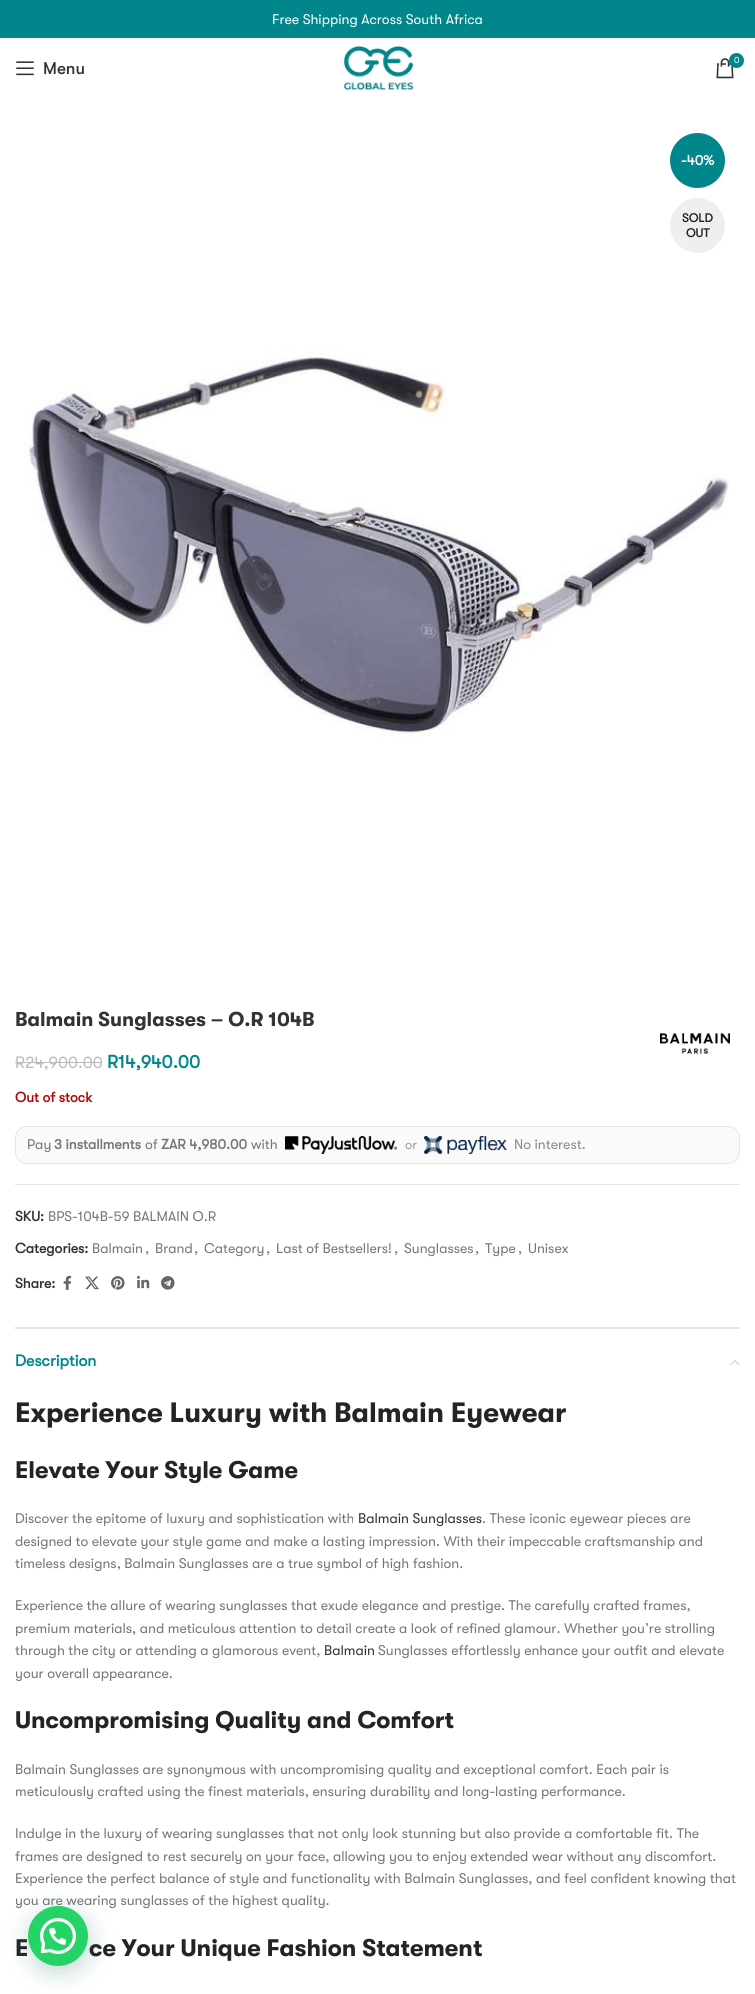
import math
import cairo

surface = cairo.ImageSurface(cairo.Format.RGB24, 755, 1994)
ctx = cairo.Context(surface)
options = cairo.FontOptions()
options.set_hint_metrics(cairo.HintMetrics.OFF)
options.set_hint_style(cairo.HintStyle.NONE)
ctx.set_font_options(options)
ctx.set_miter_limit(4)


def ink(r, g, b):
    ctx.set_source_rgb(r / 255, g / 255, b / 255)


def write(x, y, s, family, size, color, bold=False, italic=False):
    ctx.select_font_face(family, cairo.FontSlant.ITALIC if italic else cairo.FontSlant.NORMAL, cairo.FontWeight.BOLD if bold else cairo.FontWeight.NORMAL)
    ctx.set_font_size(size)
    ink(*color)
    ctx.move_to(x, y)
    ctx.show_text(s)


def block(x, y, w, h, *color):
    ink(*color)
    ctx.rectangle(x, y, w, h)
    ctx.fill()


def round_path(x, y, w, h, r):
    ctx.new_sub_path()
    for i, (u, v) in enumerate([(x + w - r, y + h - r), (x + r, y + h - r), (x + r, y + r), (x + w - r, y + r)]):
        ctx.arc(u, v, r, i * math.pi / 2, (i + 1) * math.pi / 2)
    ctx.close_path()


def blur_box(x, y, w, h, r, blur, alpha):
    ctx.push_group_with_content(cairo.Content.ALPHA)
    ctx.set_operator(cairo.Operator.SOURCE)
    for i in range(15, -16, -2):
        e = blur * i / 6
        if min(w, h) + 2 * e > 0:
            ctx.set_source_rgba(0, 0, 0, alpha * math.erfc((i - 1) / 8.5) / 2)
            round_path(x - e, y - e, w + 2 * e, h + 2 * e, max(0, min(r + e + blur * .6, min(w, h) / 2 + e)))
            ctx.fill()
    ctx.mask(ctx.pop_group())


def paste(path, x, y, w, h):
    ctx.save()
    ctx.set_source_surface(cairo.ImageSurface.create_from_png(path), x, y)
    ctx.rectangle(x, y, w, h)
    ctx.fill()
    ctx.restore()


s1 = dict(family="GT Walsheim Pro", size=14, color=(255, 255, 255))
s2 = dict(family="GT Walsheim Pro", size=9, color=(255, 255, 255))
s3 = dict(family="GT Walsheim Pro Medium", size=17, color=(51, 51, 51))
s4 = dict(family="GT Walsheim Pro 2", size=14, color=(255, 255, 255), bold=True)
s5 = dict(family="GT Walsheim Pro 2", size=12, color=(36, 36, 36), bold=True)
s6 = dict(family="GT Walsheim Pro", size=20, color=(51, 51, 51), bold=True)
s7 = dict(family="GT Walsheim Pro", size=16.5, color=(187, 187, 187))
s8 = dict(family="GT Walsheim Pro 2", size=18.25, color=(1, 134, 140), bold=True)
s9 = dict(family="GT Walsheim Pro 2", size=14, color=(181, 8, 8), bold=True)
s10 = dict(family="GT Walsheim Pro", size=14, color=(119, 119, 119))
s11 = dict(family="GT Walsheim Pro 2", size=14, color=(119, 119, 119), bold=True)
s12 = dict(family="GT Walsheim Pro", size=13, color=(158, 158, 158))
s13 = dict(family="GT Walsheim Pro", size=14, color=(139, 139, 139))
s14 = dict(family="GT Walsheim Pro 2", size=14, color=(51, 51, 51), bold=True)
s15 = dict(family="GT Walsheim Pro 2", size=16, color=(1, 134, 140), bold=True)
s16 = dict(family="GT Walsheim Pro", size=28, color=(36, 36, 36), bold=True)
s17 = dict(family="GT Walsheim Pro", size=24, color=(36, 36, 36), bold=True)
s18 = dict(family="GT Walsheim Pro", size=14, color=(51, 51, 51))

ink(255, 255, 255)
ctx.paint()
block(0, 0, 755, 38, 1, 134, 140)
write(272, 24, "Free Shipping Across South Africa", **s1)
paste("pic1.png", 343, 45, 71, 46)
paste("pic2.png", 716, 58, 18, 21)
ink(1, 134, 140)
ctx.arc(736.5, 60.5, 7.5, 0, 2 * math.pi)
ctx.fill()
write(734, 63, "0", **s2)
paste("pic3.png", 16, 61, 18, 15)
write(43, 74, "Menu", **s3)
ink(1, 134, 140)
ctx.new_path()
ctx.arc(697.5, 160.5, 27.5, 0, 2 * math.pi)
ctx.fill()
write(681, 165, "-40%", **s4)
ink(239, 239, 239)
ctx.new_path()
ctx.arc(697.5, 225.5, 27.5, 0, 2 * math.pi)
ctx.fill()
write(682, 222, "SOLD", **s5)
write(686, 237, "OUT", **s5)
paste("pic4.png", 24, 350, 705, 392)
write(15, 1026, "Balmain Sunglasses – O.R 104B", **s6)
paste("pic5.png", 660, 1033, 70, 21)
write(15, 1068, "R24,900.00", **s7)
block(15, 1062, 87, 1, 187, 187, 187)
write(107, 1068, "R14,940.00", **s8)
write(15, 1102, "Out of stock", **s9)
ink(250, 250, 250)
round_path(15.5, 1126.5, 724, 37, 11.5)
ctx.fill_preserve()
ink(230, 230, 230)
ctx.set_line_width(1)
ctx.stroke()
write(27, 1149, "Pay", **s10)
write(54, 1149, "3 installments", **s11)
write(145, 1149, "of", **s10)
write(161, 1149, "ZAR 4,980.00", **s11)
write(251, 1149, "with", **s10)
paste("pic6.png", 285, 1136, 112, 18)
write(405, 1149, "or", **s12)
paste("pic7.png", 424, 1136, 83, 18)
write(514, 1149, "No interest.", **s13)
block(15, 1184, 725, 1, 228, 228, 228)
write(15, 1221, "SKU:", **s14)
write(48, 1221, "BPS-104B-59 BALMAIN O.R", **s10)
write(15, 1253, "Categories:", **s14)
write(92, 1253, "Balmain", **s10)
write(145, 1253, ",", **s10)
write(155, 1253, "Brand", **s10)
write(194, 1253, ",", **s10)
write(204, 1253, "Category", **s10)
write(266, 1253, ",", **s10)
write(276, 1253, "Last of Bestsellers!", **s10)
write(394, 1253, ",", **s10)
write(404, 1253, "Sunglasses", **s10)
write(475, 1253, ",", **s10)
write(485, 1253, "Type", **s10)
write(518, 1253, ",", **s10)
write(528, 1253, "Unisex", **s10)
write(15, 1288, "Share:", **s14)
paste("pic8.png", 63, 1275, 9, 15)
paste("pic9.png", 85, 1276, 14, 14)
paste("pic10.png", 111, 1276, 14, 14)
paste("pic11.png", 137, 1275, 13, 14)
paste("pic12.png", 161, 1276, 14, 14)
block(15, 1327, 725, 2, 228, 228, 228)
write(15, 1366, "Description", **s15)
paste("pic13.png", 730, 1360, 10, 5)
write(15, 1422, "Experience Luxury with Balmain Eyewear", **s16)
write(15, 1478, "Elevate Your Style Game", **s17)
write(15, 1523, "Discover the epitome of luxury and sophistication with", **s10)
write(358, 1523, "Balmain Sunglasses", **s18)
write(482, 1523, ". These iconic eyewear pieces are", **s10)
write(15, 1546, "designed to elevate your style game and make a lasting impression. With their impeccable craftsmanship and", **s10)
write(15, 1568, "timeless designs, Balmain Sunglasses are a true symbol of high fashion.", **s10)
write(15, 1610, "Experience the allure of wearing sunglasses that exude elegance and prestige. The carefully crafted frames,", **s10)
write(15, 1633, "premium materials, and meticulous attention to detail create a look of refined glamour. Whether you’re strolling", **s10)
write(15, 1655, "through the city or attending a glamorous event,", **s10)
write(324, 1655, "Balmain", **s18)
write(378, 1655, "Sunglasses effortlessly enhance your outfit and elevate", **s10)
write(15, 1678, "your overall appearance.", **s10)
write(15, 1728, "Uncompromising Quality and Comfort", **s17)
write(15, 1774, "Balmain Sunglasses are synonymous with uncompromising quality and exceptional comfort. Each pair is", **s10)
write(15, 1796, "meticulously crafted using the finest materials, ensuring durability and long-lasting performance.", **s10)
write(15, 1838, "Indulge in the luxury of wearing sunglasses that not only look stunning but also provide a comfortable fit. The", **s10)
write(15, 1861, "frames are designed to rest securely on your face, allowing you to enjoy extended wear without any discomfort.", **s10)
write(15, 1883, "Experience the perfect balance of style and functionality with Balmain Sunglasses, and feel confident knowing that", **s10)
write(15, 1905, "you are wearing sunglasses of the highest quality.", **s10)
write(15, 1956, "E", **s17)
write(89, 1956, "ce Your Unique Fashion Statement", **s17)
ink(7, 94, 84)
blur_box(29, 1912, 60, 60, 30, 12, 0.24)
ink(37, 211, 102)
ctx.arc(58, 1936, 30, 0, 2 * math.pi)
ctx.fill()
paste("pic14.png", 40, 1918, 36, 36)
surface.write_to_png("screenshot.png")
